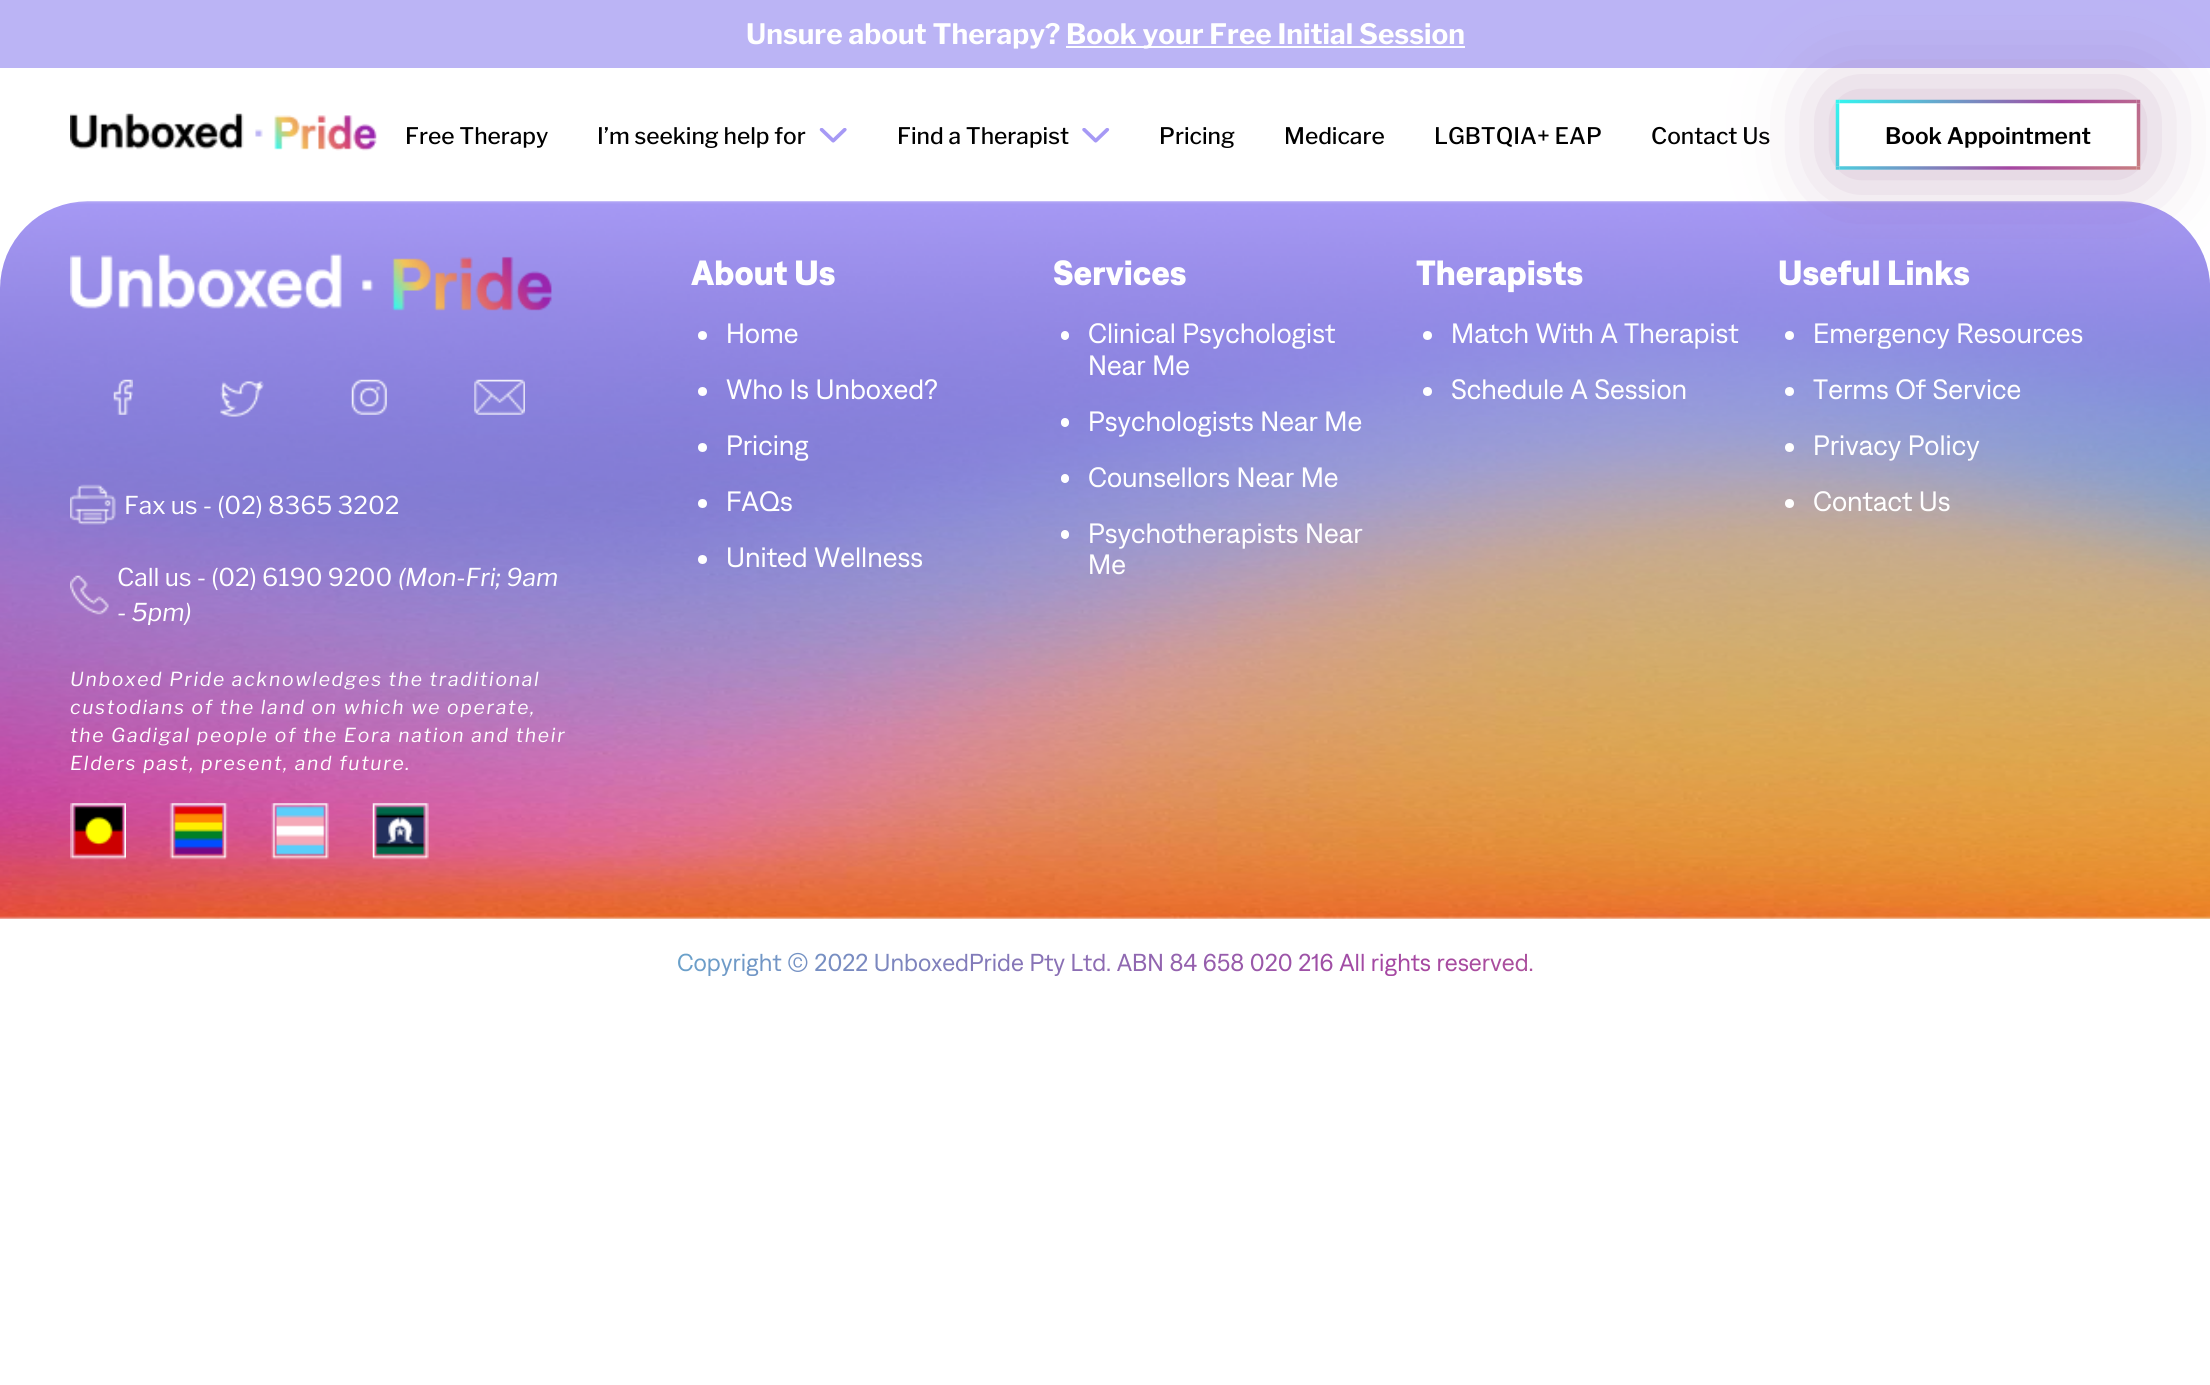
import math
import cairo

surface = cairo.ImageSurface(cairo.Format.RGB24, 2210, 1385)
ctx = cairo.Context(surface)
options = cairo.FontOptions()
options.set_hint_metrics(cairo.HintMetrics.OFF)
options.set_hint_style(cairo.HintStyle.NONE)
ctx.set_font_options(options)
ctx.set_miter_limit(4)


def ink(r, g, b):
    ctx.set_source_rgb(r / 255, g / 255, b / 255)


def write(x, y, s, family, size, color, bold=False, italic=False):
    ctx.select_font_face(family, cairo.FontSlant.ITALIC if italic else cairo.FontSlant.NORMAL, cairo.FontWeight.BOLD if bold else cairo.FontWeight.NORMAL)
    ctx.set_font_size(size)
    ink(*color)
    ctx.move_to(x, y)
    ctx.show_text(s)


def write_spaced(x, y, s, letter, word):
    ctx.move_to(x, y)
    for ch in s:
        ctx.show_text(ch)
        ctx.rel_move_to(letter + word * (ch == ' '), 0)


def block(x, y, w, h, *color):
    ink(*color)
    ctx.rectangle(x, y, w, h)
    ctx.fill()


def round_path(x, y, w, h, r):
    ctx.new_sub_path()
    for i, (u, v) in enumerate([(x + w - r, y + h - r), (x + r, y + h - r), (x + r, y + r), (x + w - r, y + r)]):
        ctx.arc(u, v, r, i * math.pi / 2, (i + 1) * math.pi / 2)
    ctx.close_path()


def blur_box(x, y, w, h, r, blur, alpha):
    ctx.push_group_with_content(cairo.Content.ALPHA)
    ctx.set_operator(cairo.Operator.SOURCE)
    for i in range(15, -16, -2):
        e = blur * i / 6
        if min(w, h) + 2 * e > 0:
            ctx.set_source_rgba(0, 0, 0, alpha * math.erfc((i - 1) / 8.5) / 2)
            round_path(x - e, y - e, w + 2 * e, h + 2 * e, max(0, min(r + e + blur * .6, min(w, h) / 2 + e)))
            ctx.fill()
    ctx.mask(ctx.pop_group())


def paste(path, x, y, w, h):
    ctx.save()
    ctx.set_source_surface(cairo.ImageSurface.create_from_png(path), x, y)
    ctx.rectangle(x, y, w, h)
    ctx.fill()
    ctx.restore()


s1 = dict(family="Libre Franklin", size=28, color=(255, 255, 255), bold=True)
s2 = dict(family="Libre Franklin Medium", size=22.75, color=(0, 0, 0))
s3 = dict(family="Libre Franklin SemiBold", size=22.75, color=(0, 0, 0))
s4 = dict(family="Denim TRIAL", size=35, color=(255, 255, 255), bold=True)
s5 = dict(family="Denim TRIAL", size=28, color=(255, 255, 255))
s6 = dict(family="Libre Franklin", size=24.5, color=(255, 255, 255))
s7 = dict(family="Libre Franklin", size=24.5, color=(255, 255, 255), italic=True)

ink(255, 255, 255)
ctx.paint()
block(0, 0, 2210, 68, 187, 180, 245)
write(746, 44, "Unsure about Therapy?", **s1)
block(1066, 46, 399, 2, 255, 255, 255)
write(1066, 44, "Book your Free Initial Session", **s1)
paste("pic1.png", 70, 113, 307, 38)
write(405, 144, "Free Therapy", **s2)
write(597, 144, "I’m seeking help for", **s2)
paste("pic2.png", 819, 128, 28, 15)
write(897, 144, "Find a Therapist", **s2)
paste("pic3.png", 1082, 128, 28, 15)
write(1159, 144, "Pricing", **s2)
write(1284, 144, "Medicare", **s2)
write(1434, 144, "LGBTQIA+ EAP", **s2)
write(1651, 144, "Contact Us", **s2)
paste("pic5.png", 0, 201, 2210, 718)
ink(158, 108, 150)
blur_box(1836, 96, 304, 77, 0, 44, 0.5)
block(1836, 100, 304, 70, 255, 255, 255)
paste("pic4.png", 1835, 99, 306, 71)
write(1885, 144, "Book Appointment", **s3)
write(691, 285, "About Us", **s4)
ctx.new_path()
ctx.arc(702.5, 335.5, 4.5, 0, 2 * math.pi)
ctx.fill()
write(726, 343, "Home", **s5)
ctx.new_path()
ctx.arc(702.5, 391.5, 4.5, 0, 2 * math.pi)
ctx.fill()
write(726, 399, "Who Is Unboxed?", **s5)
ctx.new_path()
ctx.arc(702.5, 447.5, 4.5, 0, 2 * math.pi)
ctx.fill()
write(726, 455, "Pricing", **s5)
ctx.new_path()
ctx.arc(702.5, 503.5, 4.5, 0, 2 * math.pi)
ctx.fill()
write(726, 511, "FAQs", **s5)
ctx.new_path()
ctx.arc(702.5, 559.5, 4.5, 0, 2 * math.pi)
ctx.fill()
write(726, 567, "United Wellness", **s5)
write(1053, 285, "Services", **s4)
round_path(1061, 331, 8, 9, 4)
ctx.fill()
write(1088, 343, "Clinical Psychologist", **s5)
write(1088, 375, "Near Me", **s5)
round_path(1061, 418, 8, 9, 4)
ctx.fill()
write(1088, 431, "Psychologists Near Me", **s5)
round_path(1061, 474, 8, 9, 4)
ctx.fill()
write(1088, 487, "Counsellors Near Me", **s5)
round_path(1061, 530, 8, 9, 4)
ctx.fill()
write(1088, 543, "Psychotherapists Near", **s5)
write(1088, 574, "Me", **s5)
write(1416, 285, "Therapists", **s4)
ctx.new_path()
ctx.arc(1427.5, 335.5, 4.5, 0, 2 * math.pi)
ctx.fill()
write(1451, 343, "Match With A Therapist", **s5)
ctx.new_path()
ctx.arc(1427.5, 391.5, 4.5, 0, 2 * math.pi)
ctx.fill()
write(1451, 399, "Schedule A Session", **s5)
write(1778, 285, "Useful Links", **s4)
ctx.new_path()
ctx.arc(1789.5, 335.5, 4.5, 0, 2 * math.pi)
ctx.fill()
write(1813, 343, "Emergency Resources", **s5)
ctx.new_path()
ctx.arc(1789.5, 391.5, 4.5, 0, 2 * math.pi)
ctx.fill()
write(1813, 399, "Terms Of Service", **s5)
ctx.new_path()
ctx.arc(1789.5, 447.5, 4.5, 0, 2 * math.pi)
ctx.fill()
write(1813, 455, "Privacy Policy", **s5)
ctx.new_path()
ctx.arc(1789.5, 503.5, 4.5, 0, 2 * math.pi)
ctx.fill()
write(1813, 511, "Contact Us", **s5)
paste("pic6.png", 70, 253, 482, 58)
paste("pic7.png", 113, 379, 20, 36)
paste("pic8.png", 220, 381, 44, 36)
paste("pic9.png", 351, 379, 36, 36)
paste("pic10.png", 474, 379, 51, 36)
paste("pic11.png", 70, 484, 46, 41)
write(124, 514, "Fax us - (02) 8365 3202", **s6)
paste("pic12.png", 70, 575, 39, 40)
write(117, 586, "Call us - (02) 6190 9200", **s6)
write(398, 586, "(Mon-Fri; 9am", **s7)
write(117, 621, "- 5pm)", **s7)
ctx.set_font_size(19.25)
write_spaced(70, 686, "Unboxed Pride acknowledges the traditional", 1.75, 0)
write_spaced(70, 714, "custodians of the land on which we operate,", 1.75, 0)
write_spaced(70, 742, "the Gadigal people of the Eora nation and their", 1.75, 0)
write_spaced(70, 770, "Elders past, present, and future.", 1.75, 0)
paste("pic13.png", 70, 803, 56, 57)
paste("pic14.png", 169, 803, 59, 57)
paste("pic15.png", 271, 803, 58, 57)
paste("pic16.png", 372, 803, 57, 57)
ctx.select_font_face("Denim TRIAL")
ctx.set_font_size(24.5)
gradient = cairo.LinearGradient(407, 433, 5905, 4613)
gradient.add_color_stop_rgba(0, 0.2, 0.965, 0.941, 1)
gradient.add_color_stop_rgba(0.16, 0.647, 0.275, 0.635, 1)
gradient.add_color_stop_rgba(0.37, 0.953, 0.769, 0.345, 1)
gradient.add_color_stop_rgba(0.61, 0.188, 0.247, 0.753, 1)
gradient.add_color_stop_rgba(0.78, 0.839, 0.278, 0.455, 1)
gradient.add_color_stop_rgba(1, 0.6, 0.145, 0.682, 1)
ctx.set_source(gradient)
ctx.move_to(677, 971)
ctx.show_text("Copyright © 2022 UnboxedPride Pty Ltd. ABN 84 658 020 216 All rights reserved.")
surface.write_to_png("screenshot.png")
